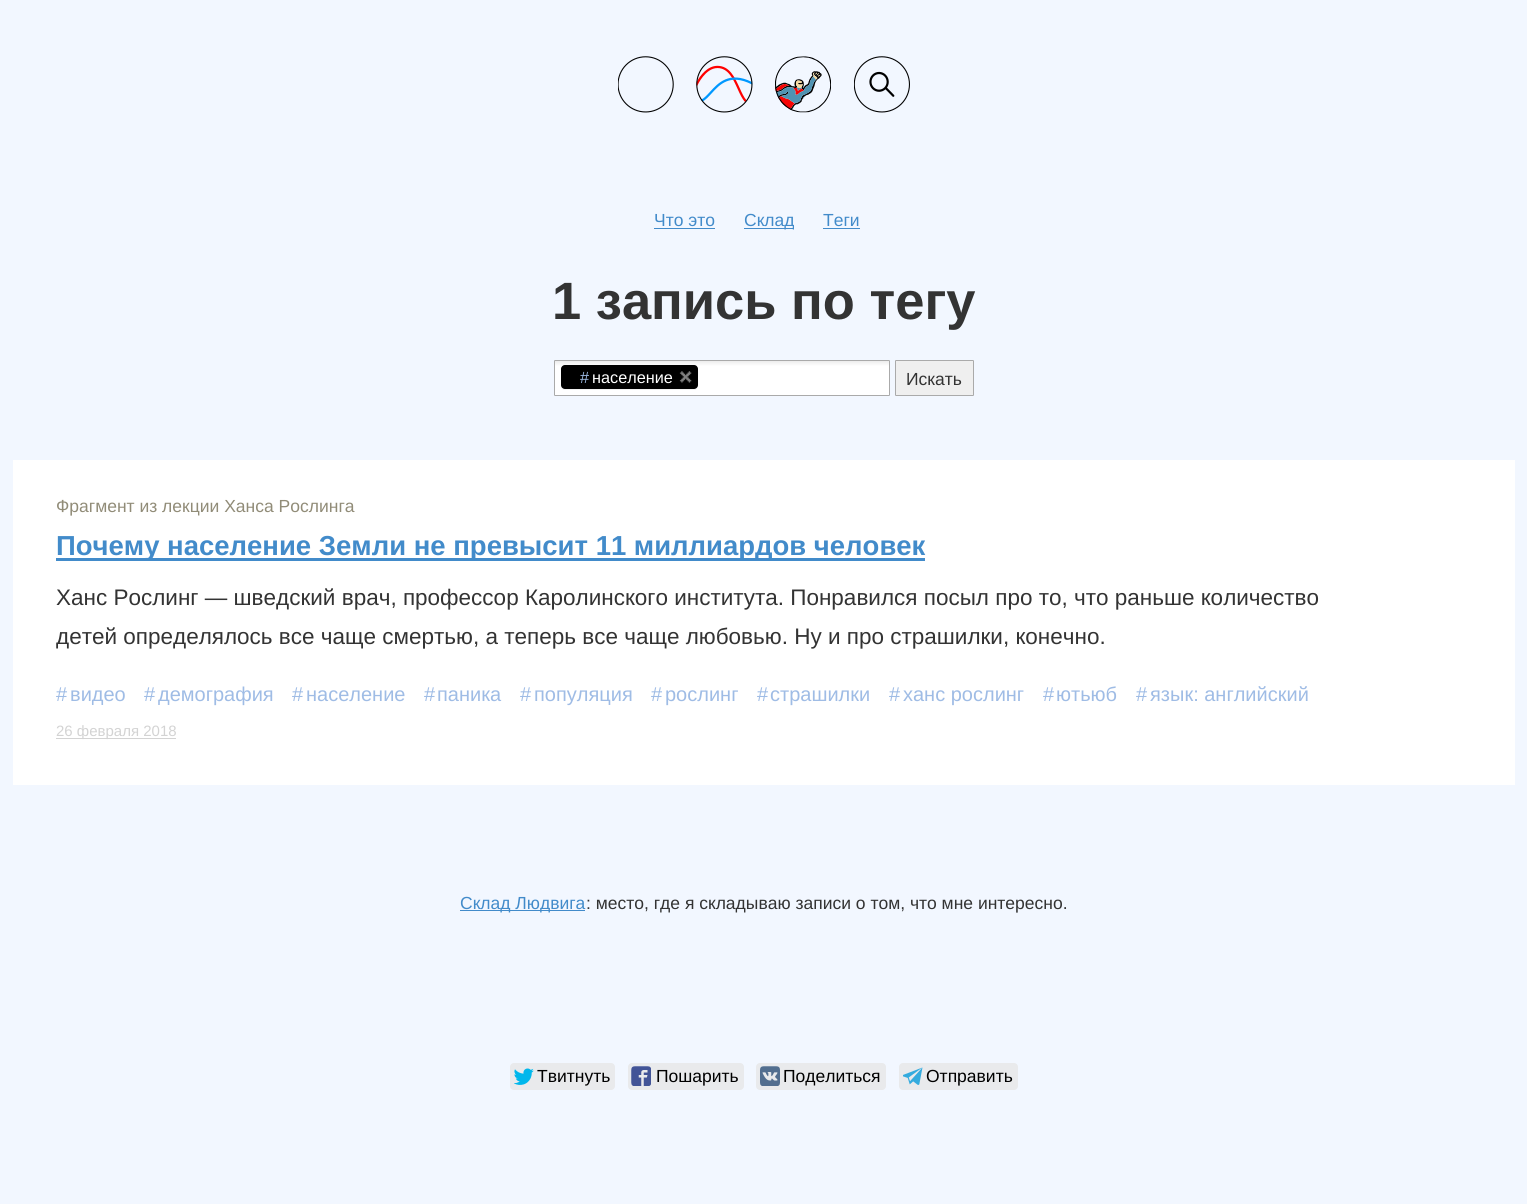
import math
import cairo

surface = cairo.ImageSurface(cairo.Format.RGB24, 1527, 1204)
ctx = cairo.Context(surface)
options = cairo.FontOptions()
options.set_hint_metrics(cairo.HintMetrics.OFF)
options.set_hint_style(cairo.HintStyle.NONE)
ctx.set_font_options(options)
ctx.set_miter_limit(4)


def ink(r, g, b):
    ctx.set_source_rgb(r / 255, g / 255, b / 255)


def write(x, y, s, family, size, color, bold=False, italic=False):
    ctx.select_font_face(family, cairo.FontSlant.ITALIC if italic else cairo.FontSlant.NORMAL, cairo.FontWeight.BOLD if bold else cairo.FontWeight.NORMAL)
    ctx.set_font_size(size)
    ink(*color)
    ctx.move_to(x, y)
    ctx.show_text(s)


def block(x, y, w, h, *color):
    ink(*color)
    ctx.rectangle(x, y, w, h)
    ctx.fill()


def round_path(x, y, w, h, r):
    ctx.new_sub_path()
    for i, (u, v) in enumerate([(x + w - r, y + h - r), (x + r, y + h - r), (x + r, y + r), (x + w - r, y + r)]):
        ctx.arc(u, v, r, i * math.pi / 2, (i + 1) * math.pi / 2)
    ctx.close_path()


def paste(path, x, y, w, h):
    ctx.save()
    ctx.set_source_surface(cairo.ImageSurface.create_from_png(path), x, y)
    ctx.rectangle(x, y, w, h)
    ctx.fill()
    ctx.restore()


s1 = dict(family="Liberation Sans", size=17.5, color=(66, 139, 202))
s2 = dict(family="Liberation Sans", size=52.5, color=(51, 51, 51), bold=True)
s3 = dict(family="Liberation Sans", size=16.25, color=(159, 188, 229))
s4 = dict(family="Liberation Sans", size=16.25, color=(255, 255, 255))
s5 = dict(family="Liberation Sans", size=17.5, color=(51, 51, 51))
s6 = dict(family="Liberation Sans", size=17.5, color=(145, 140, 120))
s7 = dict(family="Liberation Sans", size=27.5, color=(66, 139, 202), bold=True)
s8 = dict(family="Liberation Sans", size=22.5, color=(51, 51, 51))
s9 = dict(family="Liberation Sans", size=20, color=(159, 188, 229))
s10 = dict(family="Liberation Sans", size=15, color=(211, 211, 211))
s11 = dict(family="Liberation Sans", size=17.5, color=(0, 0, 0))

ink(242, 247, 255)
ctx.paint()
paste("pic1.png", 618, 56, 56, 57)
paste("pic2.png", 696, 56, 57, 57)
paste("pic3.png", 775, 56, 56, 57)
paste("pic4.png", 854, 56, 56, 57)
write(654, 226, "Что это", **s1)
block(654, 228, 61, 1, 66, 139, 202)
block(744, 228, 50, 1, 66, 139, 202)
write(744, 226, "Склад", **s1)
write(823, 226, "Теги", **s1)
block(823, 228, 37, 1, 66, 139, 202)
write(552, 319, "1 запись по тегу", **s2)
gradient = cairo.LinearGradient(722, 361, 722, 395)
gradient.add_color_stop_rgba(0.01, 0.933, 0.933, 0.933, 1)
gradient.add_color_stop_rgba(0.15, 1, 1, 1, 1)
ctx.set_source(gradient)
ctx.rectangle(555, 361, 334, 34)
ctx.fill()
round_path(554.5, 360.5, 335, 35, 0.5)
ink(170, 170, 170)
ctx.set_line_width(1)
ctx.stroke()
ink(242, 242, 242)
ctx.new_path()
ctx.move_to(561, 369)
ctx.line_to(561, 381)
ctx.curve_to(561, 384, 560, 390, 565, 390)
ctx.line_to(694, 390)
ctx.curve_to(700, 390, 698, 381, 698, 378)
ctx.curve_to(698, 375, 699, 371, 697, 368)
ctx.line_to(698, 380)
ctx.curve_to(698, 383, 699, 389, 694, 389)
ctx.line_to(565, 389)
ctx.curve_to(560, 389, 561, 383, 561, 380)
ctx.close_path()
ctx.fill()
ink(0, 0, 0)
round_path(561, 365, 137, 24, 4)
ctx.fill()
write(580, 383, "#", **s3)
write(592, 383, "население", **s4)
paste("pic5.png", 679, 371, 13, 12)
ink(239, 239, 239)
round_path(895.5, 360.5, 78, 35, 0.5)
ctx.fill_preserve()
ink(170, 170, 170)
ctx.stroke()
write(906, 385, "Искать", **s5)
block(13, 460, 1502, 325, 255, 255, 255)
write(56, 512, "Фрагмент из лекции Ханса Рослинга", **s6)
block(56, 558, 869, 3, 66, 139, 202)
write(56, 555, "Почему население Земли не превысит 11 миллиардов человек", **s7)
write(56, 605, "Ханс Рослинг — шведский врач, профессор Каролинского института. Понравился посыл про то, что раньше количество", **s8)
write(56, 644, "детей определялось все чаще смертью, а теперь все чаще любовью. Ну и про страшилки, конечно.", **s8)
write(56, 701, "#", **s9)
write(70, 701, "видео", **s9)
write(144, 701, "#", **s9)
write(158, 701, "демография", **s9)
write(292, 701, "#", **s9)
write(306, 701, "население", **s9)
write(424, 701, "#", **s9)
write(437, 701, "паника", **s9)
write(520, 701, "#", **s9)
write(534, 701, "популяция", **s9)
write(651, 701, "#", **s9)
write(665, 701, "рослинг", **s9)
write(757, 701, "#", **s9)
write(770, 701, "страшилки", **s9)
write(889, 701, "#", **s9)
write(903, 701, "ханс рослинг", **s9)
write(1043, 701, "#", **s9)
write(1056, 701, "ютьюб", **s9)
write(1136, 701, "#", **s9)
write(1150, 701, "язык: английский", **s9)
block(56, 738, 120, 1, 211, 211, 211)
write(56, 736, "26 февраля 2018", **s10)
block(460, 910, 125, 1, 66, 139, 202)
write(460, 909, "Склад Людвига", **s1)
write(586, 909, ": место, где я складываю записи о том, что мне интересно.", **s5)
ink(233, 234, 236)
round_path(510, 1063, 105, 27, 4)
ctx.fill()
paste("pic6.png", 514, 1068, 20, 17)
write(537, 1082, "Твитнуть", **s11)
ink(233, 234, 236)
round_path(628, 1063, 116, 27, 4)
ctx.fill()
paste("pic7.png", 631, 1066, 20, 20)
write(656, 1082, "Пошарить", **s11)
ink(233, 234, 236)
round_path(756, 1063, 130, 27, 4)
ctx.fill()
paste("pic8.png", 760, 1066, 20, 20)
write(783, 1082, "Поделиться", **s11)
ink(233, 234, 236)
round_path(899, 1063, 119, 27, 4)
ctx.fill()
paste("pic9.png", 903, 1067, 20, 18)
write(926, 1082, "Отправить", **s11)
surface.write_to_png("screenshot.png")
